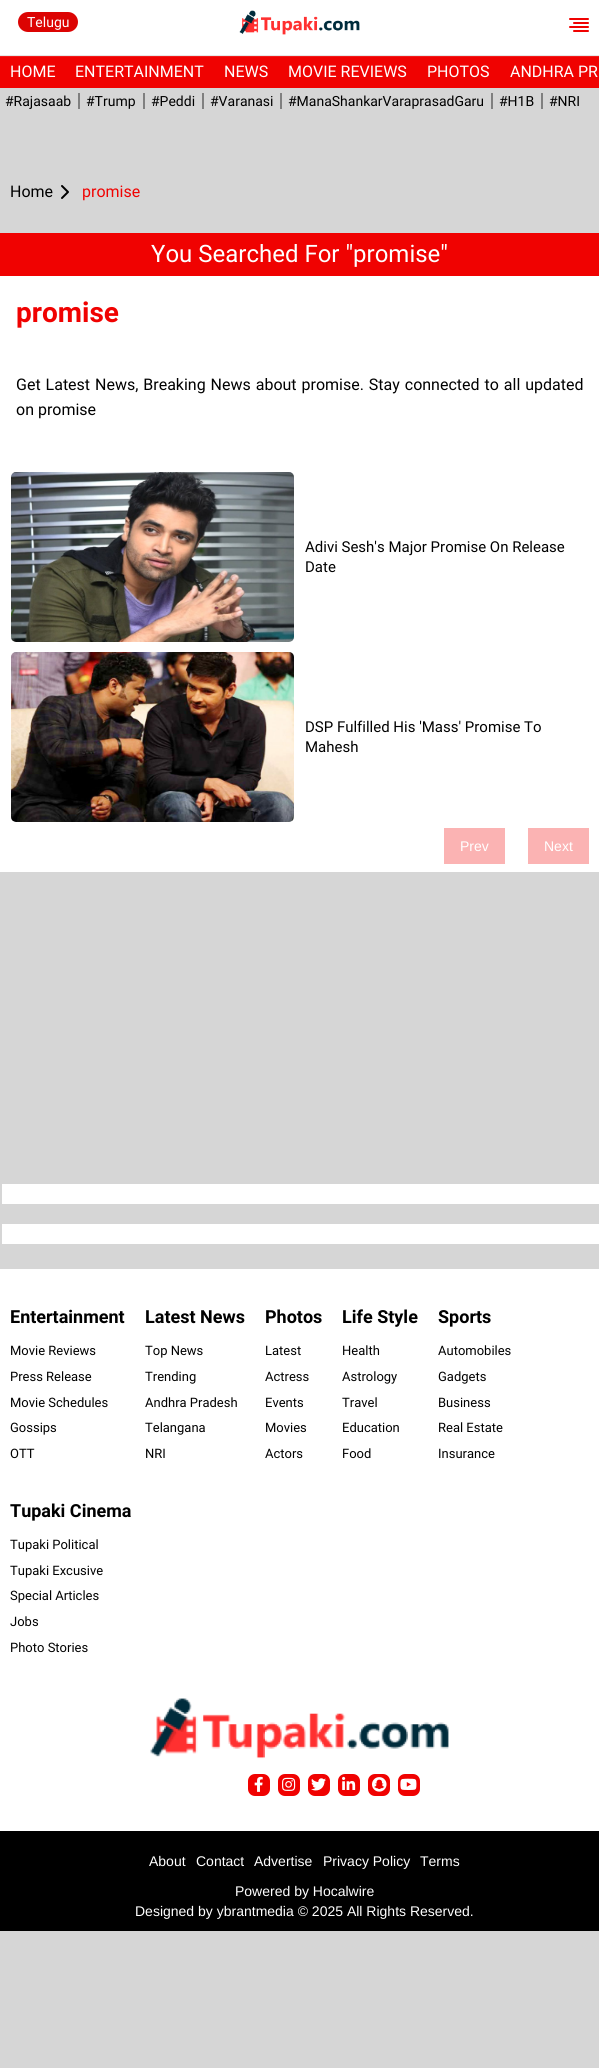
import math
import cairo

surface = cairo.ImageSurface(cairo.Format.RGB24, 599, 2068)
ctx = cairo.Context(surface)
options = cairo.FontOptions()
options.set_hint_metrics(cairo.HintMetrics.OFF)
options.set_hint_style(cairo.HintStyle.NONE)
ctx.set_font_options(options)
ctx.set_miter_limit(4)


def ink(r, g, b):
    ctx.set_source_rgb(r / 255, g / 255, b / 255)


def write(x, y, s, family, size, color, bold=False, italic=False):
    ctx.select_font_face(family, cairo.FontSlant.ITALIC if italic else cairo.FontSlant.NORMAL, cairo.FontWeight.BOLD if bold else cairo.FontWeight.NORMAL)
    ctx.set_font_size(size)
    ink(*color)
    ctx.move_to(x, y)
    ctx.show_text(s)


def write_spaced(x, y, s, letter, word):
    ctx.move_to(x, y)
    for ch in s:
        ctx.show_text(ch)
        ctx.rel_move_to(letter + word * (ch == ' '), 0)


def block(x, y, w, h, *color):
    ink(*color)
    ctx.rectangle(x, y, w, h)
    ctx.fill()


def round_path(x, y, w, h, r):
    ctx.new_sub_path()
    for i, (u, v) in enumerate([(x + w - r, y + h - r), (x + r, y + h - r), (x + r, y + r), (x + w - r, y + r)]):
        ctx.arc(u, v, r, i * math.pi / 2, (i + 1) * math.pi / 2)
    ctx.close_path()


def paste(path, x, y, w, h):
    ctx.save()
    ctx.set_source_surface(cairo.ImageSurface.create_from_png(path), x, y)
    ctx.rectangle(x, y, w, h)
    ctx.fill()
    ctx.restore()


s1 = dict(family="Roboto", size=14, color=(255, 255, 255))
s2 = dict(family="Roboto", size=16, color=(255, 255, 255))
s3 = dict(family="Roboto", size=14, color=(0, 0, 0))
s4 = dict(family="Roboto", size=16, color=(0, 0, 0))
s5 = dict(family="Roboto", size=16, color=(240, 2, 1))
s6 = dict(family="Roboto", size=24, color=(255, 255, 255))
s7 = dict(family="Roboto", size=28, color=(240, 2, 1), bold=True)
s8 = dict(family="Roboto", size=15, color=(0, 0, 0))
s9 = dict(family="Liberation Sans", size=14, color=(255, 255, 255))
s10 = dict(family="Roboto", size=18, color=(0, 0, 0), bold=True)
s11 = dict(family="Roboto", size=13, color=(0, 0, 0))

ink(214, 214, 214)
ctx.paint()
block(0, 57, 599, 31, 240, 2, 1)
block(0, 0, 599, 55, 255, 255, 255)
ink(220, 4, 3)
round_path(18, 12, 60, 20, 10)
ctx.fill()
write(27, 27, "Telugu", **s1)
paste("pic1.png", 569, 18, 20, 14)
paste("pic2.png", 239, 10, 121, 25)
block(0, 56, 599, 1, 242, 27, 26)
block(0, 55, 599, 1, 231, 231, 231)
write(10, 77, "HOME", **s2)
write(75, 77, "ENTERTAINMENT", **s2)
write(224, 77, "NEWS", **s2)
write(288, 77, "MOVIE REVIEWS", **s2)
write(427, 77, "PHOTOS", **s2)
write(510, 77, "ANDHRA PR", **s2)
write(5, 106, "#Rajasaab", **s3)
block(78, 93, 2, 16, 128, 128, 128)
write(86, 106, "#Trump", **s3)
block(143, 93, 2, 16, 128, 128, 128)
write(151, 106, "#Peddi", **s3)
block(202, 93, 2, 16, 128, 128, 128)
write(210, 106, "#Varanasi", **s3)
block(280, 93, 2, 16, 128, 128, 128)
write(288, 106, "#ManaShankarVaraprasadGaru", **s3)
block(491, 93, 2, 16, 128, 128, 128)
write(499, 106, "#H1B", **s3)
block(541, 93, 2, 16, 128, 128, 128)
write(549, 106, "#NRI", **s3)
write(10, 197, "Home", **s4)
ctx.new_path()
ctx.move_to(62, 198)
ctx.line_to(68, 192)
ctx.line_to(62, 186)
ctx.set_line_cap(cairo.LineCap.ROUND)
ctx.set_line_join(cairo.LineJoin.ROUND)
ctx.stroke()
write(82, 197, "promise", **s5)
block(0, 233, 599, 43, 240, 2, 1)
write(151, 262, "You Searched For \"promise\"", **s6)
block(0, 276, 599, 596, 255, 255, 255)
write(16, 322, "promise", **s7)
ctx.select_font_face("Roboto")
ctx.set_font_size(16)
ink(0, 0, 0)
write_spaced(16, 390, "Get Latest News, Breaking News about promise. Stay connected to all updated", 0, 1)
write(16, 415, "on promise", **s4)
paste("pic3.png", 11, 472, 283, 170)
write(305, 552, "Adivi Sesh's Major Promise On Release", **s8)
write(305, 572, "Date", **s8)
paste("pic4.png", 11, 652, 283, 170)
write(305, 732, "DSP Fulfilled His 'Mass' Promise To", **s8)
write(305, 752, "Mahesh", **s8)
block(444, 828, 61, 36, 251, 179, 179)
write(460, 851, "Prev", **s9)
block(528, 828, 61, 36, 251, 179, 179)
write(544, 851, "Next", **s9)
block(2, 1184, 597, 20, 255, 255, 255)
block(2, 1224, 597, 20, 255, 255, 255)
block(0, 1269, 599, 562, 255, 255, 255)
write(10, 1323, "Entertainment", **s10)
write(10, 1355, "Movie Reviews", **s11)
write(10, 1381, "Press Release", **s11)
write(10, 1407, "Movie Schedules", **s11)
write(10, 1432, "Gossips", **s11)
write(10, 1458, "OTT", **s11)
write(145, 1323, "Latest News", **s10)
write(145, 1355, "Top News", **s11)
write(145, 1381, "Trending", **s11)
write(145, 1407, "Andhra Pradesh", **s11)
write(145, 1432, "Telangana", **s11)
write(145, 1458, "NRI", **s11)
write(265, 1323, "Photos", **s10)
write(265, 1355, "Latest", **s11)
write(265, 1381, "Actress", **s11)
write(265, 1407, "Events", **s11)
write(265, 1432, "Movies", **s11)
write(265, 1458, "Actors", **s11)
write(342, 1323, "Life Style", **s10)
write(342, 1355, "Health", **s11)
write(342, 1381, "Astrology", **s11)
write(342, 1407, "Travel", **s11)
write(342, 1432, "Education", **s11)
write(342, 1458, "Food", **s11)
write(438, 1323, "Sports", **s10)
write(438, 1355, "Automobiles", **s11)
write(438, 1381, "Gadgets", **s11)
write(438, 1407, "Business", **s11)
write(438, 1432, "Real Estate", **s11)
write(438, 1458, "Insurance", **s11)
write(10, 1517, "Tupaki Cinema", **s10)
write(10, 1549, "Tupaki Political", **s11)
write(10, 1575, "Tupaki Excusive", **s11)
write(10, 1600, "Special Articles", **s11)
write(10, 1626, "Jobs", **s11)
write(10, 1652, "Photo Stories", **s11)
paste("pic5.png", 150, 1698, 299, 61)
ink(240, 2, 1)
round_path(248, 1774, 22, 22, 7)
ctx.fill()
paste("pic6.png", 254, 1776, 9, 16)
round_path(278, 1774, 22, 22, 7)
ctx.fill()
paste("pic7.png", 282, 1777, 14, 14)
round_path(308, 1774, 22, 22, 7)
ctx.fill()
paste("pic8.png", 311, 1778, 15, 13)
round_path(338, 1774, 22, 22, 7)
ctx.fill()
paste("pic9.png", 342, 1776, 14, 14)
round_path(368, 1774, 22, 22, 7)
ctx.fill()
paste("pic10.png", 372, 1777, 15, 15)
round_path(398, 1774, 22, 22, 7)
ctx.fill()
paste("pic11.png", 400, 1778, 17, 12)
block(0, 1831, 599, 100, 0, 0, 0)
write(149, 1866, "About", **s9)
write(196, 1866, "Contact", **s9)
write(254, 1866, "Advertise", **s9)
write(323, 1866, "Privacy Policy", **s9)
write(420, 1866, "Terms", **s9)
write(235, 1896, "Powered by Hocalwire", **s9)
write(135, 1916, "Designed by ybrantmedia © 2025 All Rights Reserved.", **s9)
surface.write_to_png("screenshot.png")
